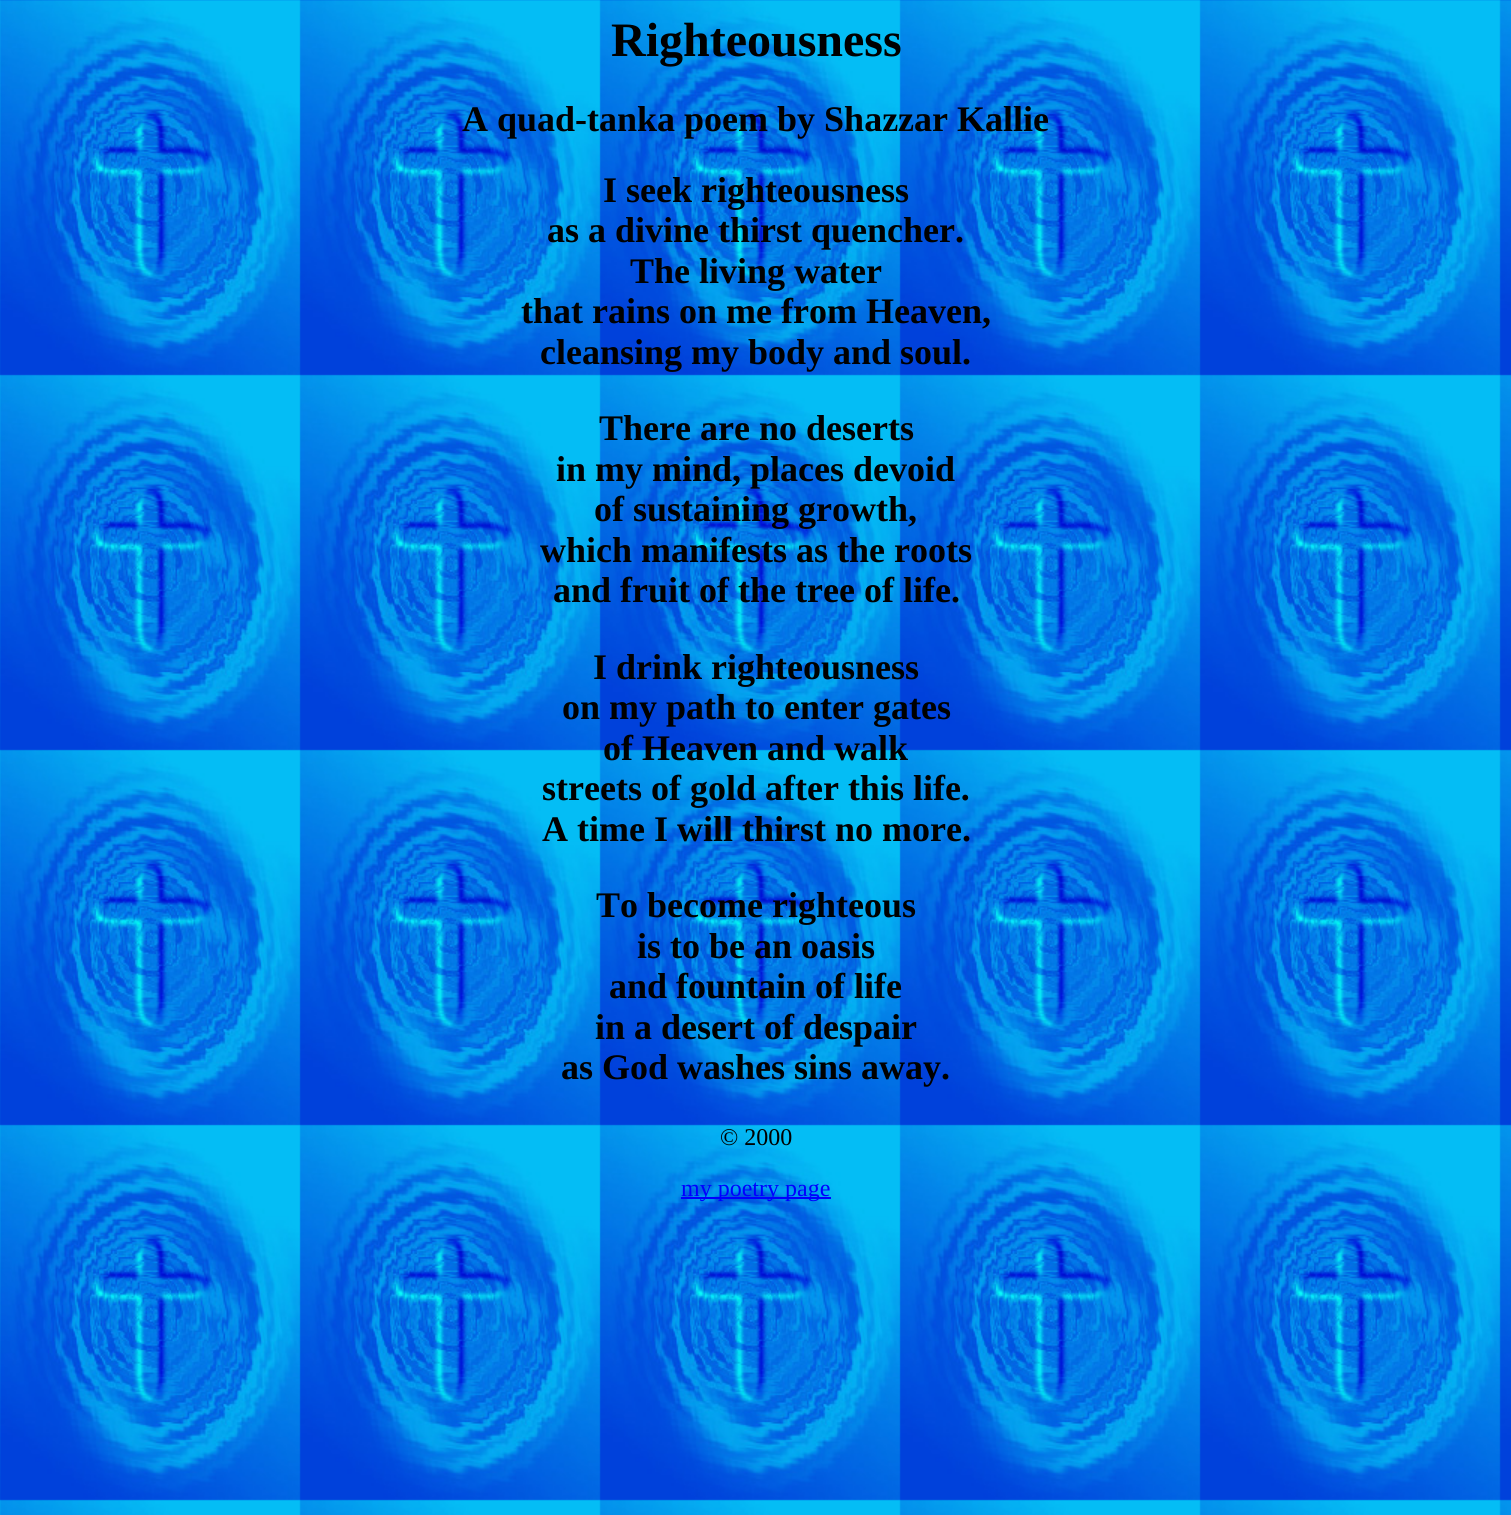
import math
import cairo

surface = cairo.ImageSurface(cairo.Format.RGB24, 1511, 1515)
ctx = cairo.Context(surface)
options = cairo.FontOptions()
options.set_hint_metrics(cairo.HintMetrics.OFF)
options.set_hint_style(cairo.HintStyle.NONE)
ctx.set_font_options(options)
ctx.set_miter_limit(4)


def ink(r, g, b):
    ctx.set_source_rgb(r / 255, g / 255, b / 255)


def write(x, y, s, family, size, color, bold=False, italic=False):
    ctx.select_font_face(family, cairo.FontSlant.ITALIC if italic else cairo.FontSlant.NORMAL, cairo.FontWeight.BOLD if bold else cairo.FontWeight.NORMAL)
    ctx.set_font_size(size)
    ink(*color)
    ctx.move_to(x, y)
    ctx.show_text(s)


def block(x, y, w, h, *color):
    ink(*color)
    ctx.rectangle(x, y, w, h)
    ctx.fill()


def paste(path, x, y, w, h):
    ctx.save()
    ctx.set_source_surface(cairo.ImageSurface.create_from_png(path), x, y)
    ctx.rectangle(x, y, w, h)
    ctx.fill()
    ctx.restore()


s1 = dict(family="Liberation Serif", size=48, color=(0, 0, 0), bold=True)
s2 = dict(family="Liberation Serif", size=36, color=(0, 0, 0), bold=True)
s3 = dict(family="Liberation Serif", size=24, color=(0, 0, 0))
s4 = dict(family="Liberation Serif", size=24, color=(0, 0, 255))

ink(255, 255, 255)
ctx.paint()
paste("pic1.png", 0, 0, 1511, 1515)
write(611, 56, "Righteousness", **s1)
write(462, 131, "A quad-tanka poem by Shazzar Kallie", **s2)
write(603, 202, "I seek righteousness", **s2)
write(547, 242, "as a divine thirst quencher.", **s2)
write(630, 283, "The living water", **s2)
write(521, 323, "that rains on me from Heaven,", **s2)
write(540, 364, "cleansing my body and soul.", **s2)
write(599, 440, "There are no deserts", **s2)
write(556, 481, "in my mind, places devoid", **s2)
write(594, 521, "of sustaining growth,", **s2)
write(540, 562, "which manifests as the roots", **s2)
write(553, 602, "and fruit of the tree of life.", **s2)
write(593, 679, "I drink righteousness", **s2)
write(562, 719, "on my path to enter gates", **s2)
write(603, 760, "of Heaven and walk", **s2)
write(542, 800, "streets of gold after this life.", **s2)
write(542, 841, "A time I will thirst no more.", **s2)
write(596, 917, "To become righteous", **s2)
write(637, 958, "is to be an oasis", **s2)
write(609, 998, "and fountain of life", **s2)
write(595, 1039, "in a desert of despair", **s2)
write(561, 1079, "as God washes sins away.", **s2)
write(720, 1145, "© 2000", **s3)
block(681, 1197, 150, 2, 0, 0, 255)
write(681, 1196, "my poetry page", **s4)
surface.write_to_png("screenshot.png")
